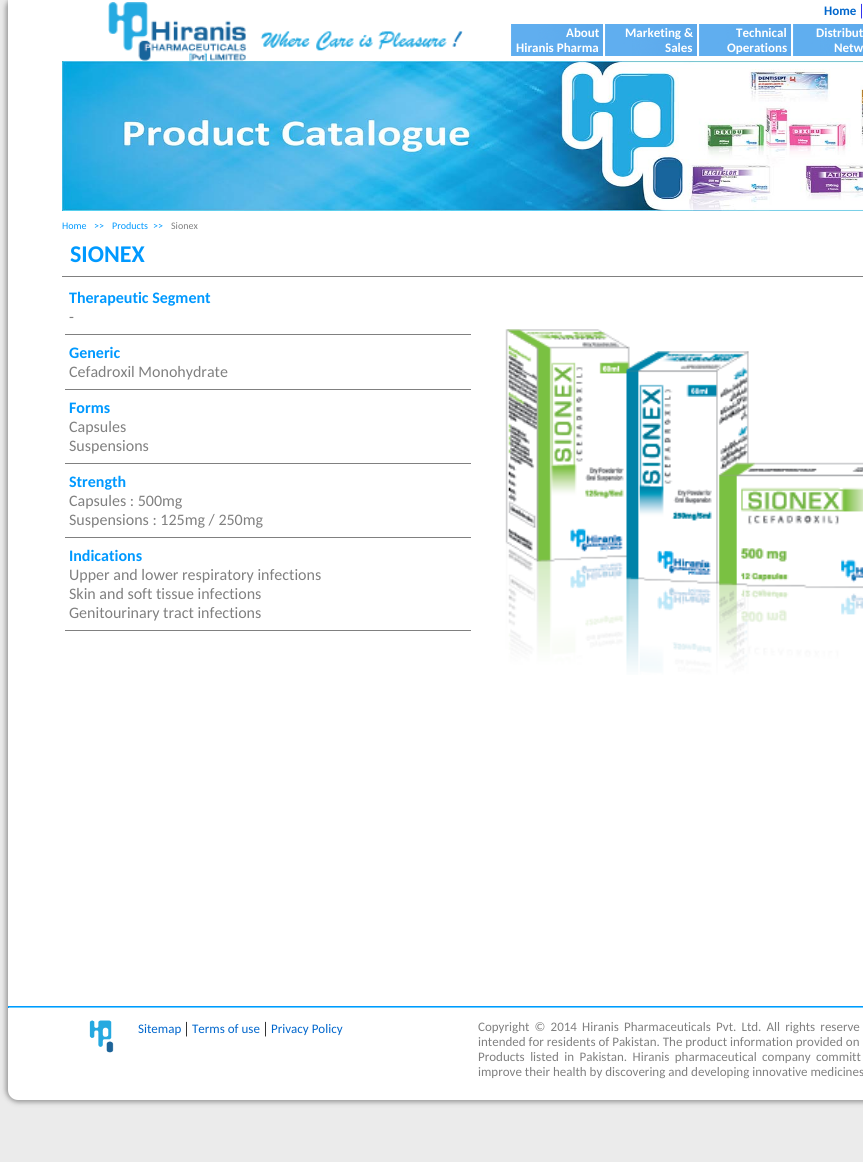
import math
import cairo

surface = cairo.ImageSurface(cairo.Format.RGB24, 863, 1162)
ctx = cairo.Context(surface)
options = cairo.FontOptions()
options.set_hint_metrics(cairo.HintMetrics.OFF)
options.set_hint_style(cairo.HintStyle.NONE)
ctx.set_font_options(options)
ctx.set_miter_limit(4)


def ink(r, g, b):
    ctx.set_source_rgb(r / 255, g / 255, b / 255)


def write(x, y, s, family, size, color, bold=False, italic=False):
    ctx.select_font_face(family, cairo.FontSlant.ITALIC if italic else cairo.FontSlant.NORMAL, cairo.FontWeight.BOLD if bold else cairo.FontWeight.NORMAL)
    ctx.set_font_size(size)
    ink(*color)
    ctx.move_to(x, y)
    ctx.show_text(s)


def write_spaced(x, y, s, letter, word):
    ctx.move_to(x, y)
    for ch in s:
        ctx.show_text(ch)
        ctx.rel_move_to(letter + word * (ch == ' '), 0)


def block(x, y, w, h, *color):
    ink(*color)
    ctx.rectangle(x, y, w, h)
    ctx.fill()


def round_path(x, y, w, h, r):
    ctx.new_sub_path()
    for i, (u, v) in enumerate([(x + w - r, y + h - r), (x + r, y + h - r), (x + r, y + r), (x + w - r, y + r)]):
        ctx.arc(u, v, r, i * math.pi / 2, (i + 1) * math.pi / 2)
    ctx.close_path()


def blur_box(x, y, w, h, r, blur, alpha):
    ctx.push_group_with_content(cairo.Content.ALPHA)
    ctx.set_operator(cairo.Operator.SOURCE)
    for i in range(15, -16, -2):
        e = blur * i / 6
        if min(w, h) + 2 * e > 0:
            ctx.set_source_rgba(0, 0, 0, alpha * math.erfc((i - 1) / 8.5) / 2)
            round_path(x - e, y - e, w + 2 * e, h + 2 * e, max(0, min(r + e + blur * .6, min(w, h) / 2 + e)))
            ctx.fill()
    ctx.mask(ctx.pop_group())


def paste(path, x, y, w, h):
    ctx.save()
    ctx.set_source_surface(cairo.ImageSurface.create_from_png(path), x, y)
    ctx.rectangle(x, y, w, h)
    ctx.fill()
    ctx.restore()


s1 = dict(family="Carlito", size=13, color=(0, 102, 204), bold=True)
s2 = dict(family="Liberation Serif", size=16, color=(0, 0, 238))
s3 = dict(family="Carlito", size=13, color=(255, 255, 255), bold=True)
s4 = dict(family="Carlito", size=10, color=(0, 153, 255))
s5 = dict(family="Carlito", size=10, color=(128, 128, 128))
s6 = dict(family="Carlito", size=24, color=(0, 153, 255), bold=True)
s7 = dict(family="Carlito", size=16, color=(0, 153, 255), bold=True)
s8 = dict(family="Carlito", size=16, color=(128, 128, 128))
s9 = dict(family="Carlito", size=13, color=(0, 102, 204))
s10 = dict(family="Liberation Serif", size=16, color=(0, 0, 0))
s11 = dict(family="Carlito", size=13, color=(128, 128, 128))

ink(235, 235, 235)
ctx.paint()
ink(119, 119, 119)
blur_box(6, -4, 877, 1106, 12, 2.5, 0.75)
ink(255, 255, 255)
ctx.new_path()
ctx.move_to(8, -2)
ctx.line_to(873, -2)
ctx.line_to(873, 1090)
ctx.curve_to(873, 1095.5, 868.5, 1100, 863, 1100)
ctx.line_to(18, 1100)
ctx.curve_to(12.5, 1100, 8, 1095.5, 8, 1090)
ctx.close_path()
ctx.fill()
paste("pic4.png", 62, 61, 801, 150)
paste("pic1.png", 108, 2, 355, 60)
write(824, 15, "Home", **s1)
write(860, 15, "|", **s2)
paste("pic2.png", 511, 24, 92, 32)
write(566, 37, "About", **s3)
write(516, 52, "Hiranis Pharma", **s3)
paste("pic2.png", 605, 24, 92, 32)
write(625, 37, "Marketing &", **s3)
write(665, 52, "Sales", **s3)
paste("pic2.png", 699, 24, 92, 32)
write(736, 37, "Technical", **s3)
write(727, 52, "Operations", **s3)
paste("pic3.png", 793, 24, 70, 32)
write(816, 37, "Distribut", **s3)
write(834, 52, "Netw", **s3)
write(62, 229, "Home", **s4)
write(94, 229, ">>", **s4)
write(112, 229, "Products", **s4)
write(153, 229, ">>", **s4)
write(171, 229, "Sionex", **s5)
write(70, 262, "SIONEX", **s6)
block(62, 276, 801, 1, 128, 128, 128)
write(69, 303, "Therapeutic Segment", **s7)
write(69, 322, "-", **s8)
block(65, 334, 406, 1, 128, 128, 128)
write(69, 358, "Generic", **s7)
write(69, 377, "Cefadroxil Monohydrate", **s8)
block(65, 389, 406, 1, 128, 128, 128)
write(69, 413, "Forms", **s7)
write(69, 432, "Capsules", **s8)
write(69, 451, "Suspensions", **s8)
block(65, 463, 406, 1, 128, 128, 128)
write(69, 487, "Strength", **s7)
write(69, 506, "Capsules : 500mg", **s8)
write(69, 525, "Suspensions : 125mg / 250mg", **s8)
block(65, 537, 406, 1, 128, 128, 128)
write(69, 561, "Indications", **s7)
write(69, 580, "Upper and lower respiratory infections", **s8)
write(69, 599, "Skin and soft tissue infections", **s8)
write(69, 618, "Genitourinary tract infections", **s8)
block(65, 630, 406, 1, 128, 128, 128)
paste("pic5.png", 505, 329, 358, 346)
block(8, 1006, 855, 1, 0, 153, 255)
block(8, 1007, 855, 1, 102, 204, 255)
block(8, 1006, 1, 2, 0, 153, 255)
paste("pic6.png", 89, 1020, 25, 33)
write(138, 1033, "Sitemap", **s9)
write(185, 1033, "|", **s10)
write(192, 1033, "Terms of use", **s9)
write(264, 1033, "|", **s10)
write(271, 1033, "Privacy Policy", **s9)
ink(128, 128, 128)
write_spaced(478, 1031, "Copyright © 2014 Hiranis Pharmaceuticals Pvt. Ltd. All rights reserve", 0, 2.25)
write(478, 1046, "intended for residents of Pakistan. The product information provided on", **s11)
write_spaced(478, 1061, "Products listed in Pakistan. Hiranis pharmaceutical company committ", 0, 2.5)
write(478, 1076, "improve their health by discovering and developing innovative medicines", **s11)
surface.write_to_png("screenshot.png")
